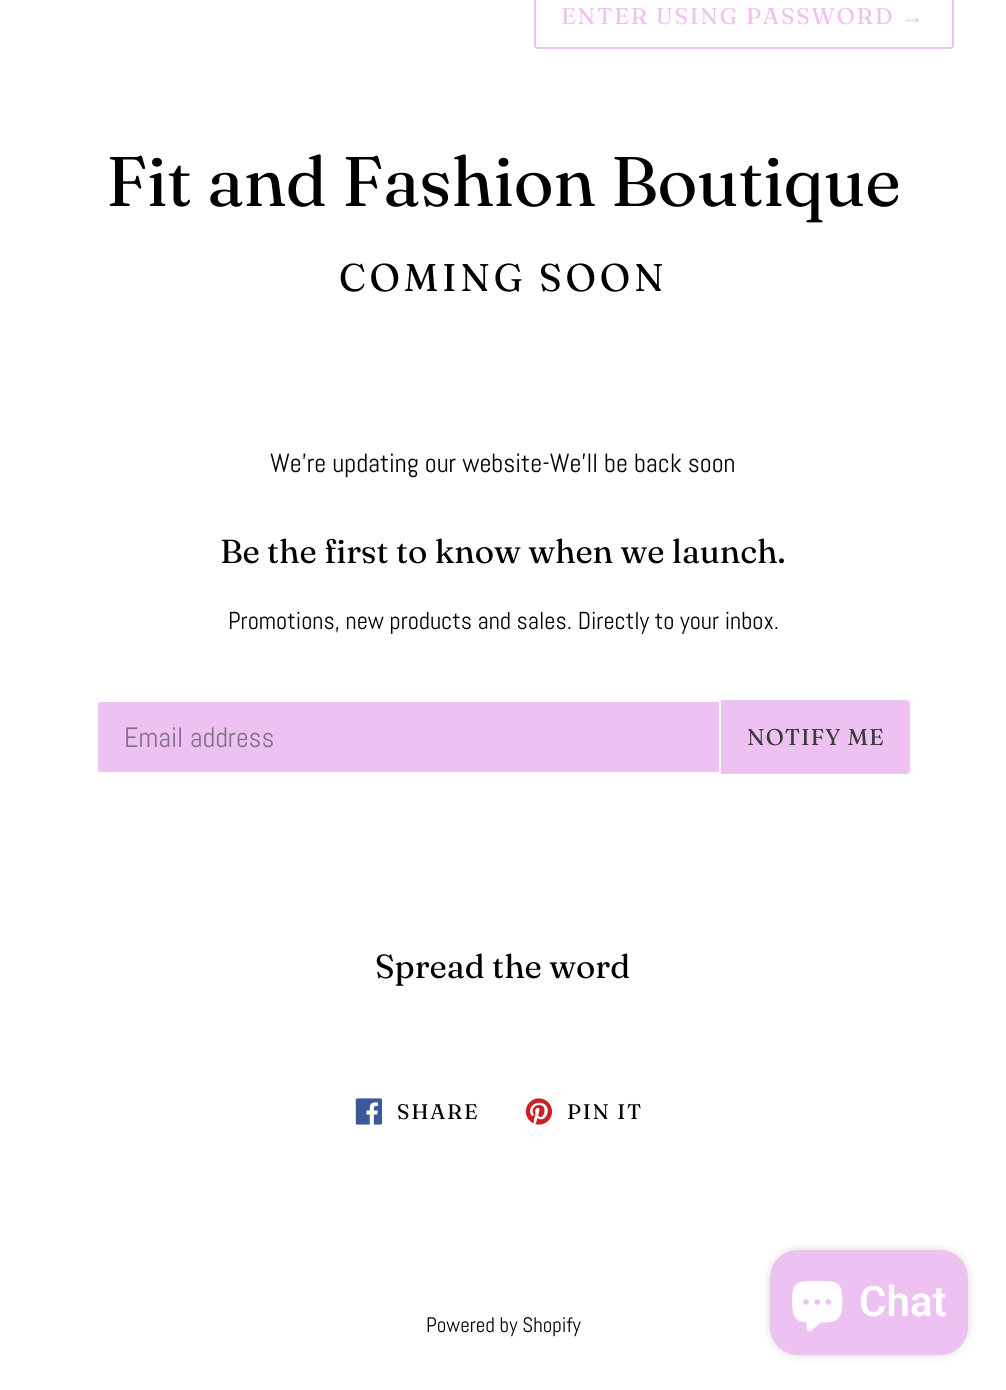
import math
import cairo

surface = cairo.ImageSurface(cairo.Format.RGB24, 1006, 1390)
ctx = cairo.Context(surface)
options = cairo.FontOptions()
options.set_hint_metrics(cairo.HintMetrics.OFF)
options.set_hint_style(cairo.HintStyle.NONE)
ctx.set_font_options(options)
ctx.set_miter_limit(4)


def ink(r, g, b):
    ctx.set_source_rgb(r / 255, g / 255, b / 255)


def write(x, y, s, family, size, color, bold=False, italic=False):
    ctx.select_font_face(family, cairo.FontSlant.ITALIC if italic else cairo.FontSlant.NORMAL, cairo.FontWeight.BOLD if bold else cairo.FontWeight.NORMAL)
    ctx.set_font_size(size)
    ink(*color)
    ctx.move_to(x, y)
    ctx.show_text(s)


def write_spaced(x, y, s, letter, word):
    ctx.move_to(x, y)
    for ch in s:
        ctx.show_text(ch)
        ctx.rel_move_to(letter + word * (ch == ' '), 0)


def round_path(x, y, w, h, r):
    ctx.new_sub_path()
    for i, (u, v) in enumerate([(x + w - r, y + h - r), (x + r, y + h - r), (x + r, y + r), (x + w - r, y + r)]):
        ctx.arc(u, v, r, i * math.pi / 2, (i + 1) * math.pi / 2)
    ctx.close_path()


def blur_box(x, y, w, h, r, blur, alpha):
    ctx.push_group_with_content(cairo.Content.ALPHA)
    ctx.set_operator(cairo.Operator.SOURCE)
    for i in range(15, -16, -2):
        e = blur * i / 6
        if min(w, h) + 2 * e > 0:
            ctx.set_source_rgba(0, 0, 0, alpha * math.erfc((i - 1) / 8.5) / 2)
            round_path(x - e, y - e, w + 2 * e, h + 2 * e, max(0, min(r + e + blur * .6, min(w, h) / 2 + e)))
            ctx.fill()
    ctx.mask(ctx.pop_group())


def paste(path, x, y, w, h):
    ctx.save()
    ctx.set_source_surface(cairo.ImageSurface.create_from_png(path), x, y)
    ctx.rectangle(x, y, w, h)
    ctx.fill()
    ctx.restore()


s1 = dict(family="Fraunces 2", size=70, color=(0, 0, 0))
s2 = dict(family="Abel", size=26.25, color=(0, 0, 0))
s3 = dict(family="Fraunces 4", size=33.25, color=(0, 0, 0))
s4 = dict(family="Abel", size=24.5, color=(0, 0, 0))
s5 = dict(family="Abel", size=28, color=(130, 112, 131))
s6 = dict(family="Abel", size=21, color=(0, 0, 0))
s7 = dict(family="Roboto SemiBold", size=42, color=(255, 255, 255))

ink(255, 255, 255)
ctx.paint()
round_path(535, -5, 418, 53, 3)
ink(237, 193, 241)
ctx.stroke()
ctx.select_font_face("Fraunces")
ctx.set_font_size(22.75)
write_spaced(561, 24, "ENTER USING PASSWORD", 1.8, 0)
ctx.select_font_face("Liberation Serif")
write_spaced(901, 24, "→", 1.8, 0)
write(106, 206, "Fit and Fashion Boutique", **s1)
ctx.select_font_face("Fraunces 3")
ctx.set_font_size(38.5)
write_spaced(339, 291, "COMING SOON", 3.8, 0)
write(270, 472, "We're updating our website-We'll be back soon", **s2)
write(220, 563, "Be the first to know when we launch.", **s3)
write(228, 629, "Promotions, new products and sales. Directly to your inbox.", **s4)
ink(237, 193, 241)
ctx.new_path()
ctx.move_to(100, 701)
ctx.line_to(720, 701)
ctx.line_to(720, 773)
ctx.line_to(100, 773)
ctx.curve_to(98.5, 773, 97, 771.5, 97, 770)
ctx.line_to(97, 704)
ctx.curve_to(97, 702.5, 98.5, 701, 100, 701)
ctx.close_path()
ctx.fill_preserve()
ink(255, 255, 255)
ctx.stroke()
write(124, 747, "Email address", **s5)
ink(237, 193, 241)
ctx.new_path()
ctx.move_to(721, 700)
ctx.line_to(906, 700)
ctx.curve_to(908, 700, 910, 702, 910, 704)
ctx.line_to(910, 770)
ctx.curve_to(910, 772, 908, 774, 906, 774)
ctx.line_to(721, 774)
ctx.close_path()
ctx.fill()
ctx.select_font_face("Fraunces")
ctx.set_font_size(22.75)
ink(58, 58, 58)
write_spaced(747, 745, "NOTIFY ME", 0.9, 0)
write(375, 978, "Spread the word", **s3)
paste("pic1.png", 355, 1098, 27, 27)
ctx.select_font_face("Fraunces")
ctx.set_font_size(21)
write_spaced(397, 1119, "SHARE", 1.75, 0)
paste("pic2.png", 525, 1098, 28, 27)
write_spaced(567, 1119, "PIN IT", 1.75, 0)
write(426, 1332, "Powered by Shopify", **s6)
ink(0, 0, 0)
blur_box(770, 1250, 198, 105, 28, 4.5, 0.15)
ink(237, 193, 241)
round_path(770, 1250, 198, 105, 28)
ctx.fill()
paste("pic3.png", 792, 1281, 51, 51)
write(859, 1316, "Chat", **s7)
surface.write_to_png("screenshot.png")
